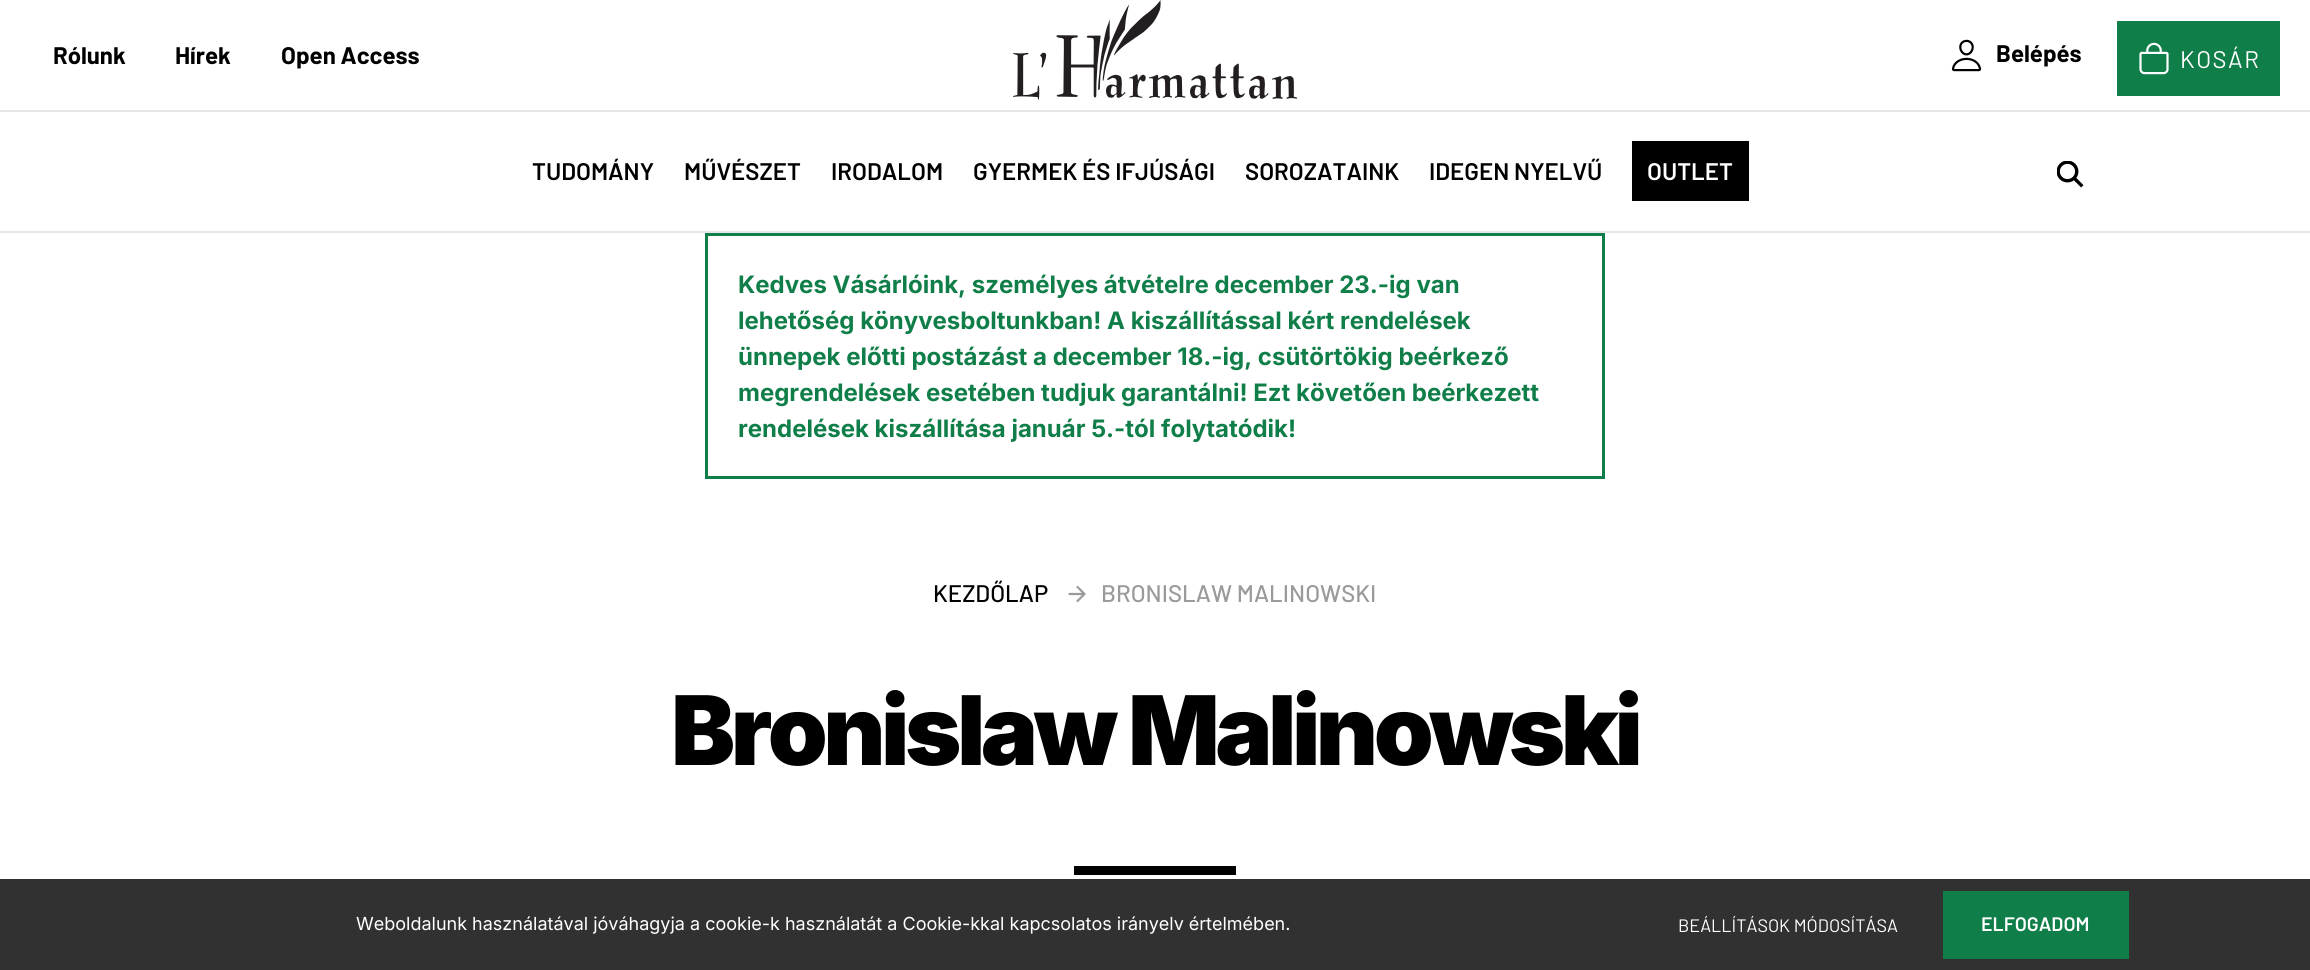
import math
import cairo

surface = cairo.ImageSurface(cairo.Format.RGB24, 2310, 970)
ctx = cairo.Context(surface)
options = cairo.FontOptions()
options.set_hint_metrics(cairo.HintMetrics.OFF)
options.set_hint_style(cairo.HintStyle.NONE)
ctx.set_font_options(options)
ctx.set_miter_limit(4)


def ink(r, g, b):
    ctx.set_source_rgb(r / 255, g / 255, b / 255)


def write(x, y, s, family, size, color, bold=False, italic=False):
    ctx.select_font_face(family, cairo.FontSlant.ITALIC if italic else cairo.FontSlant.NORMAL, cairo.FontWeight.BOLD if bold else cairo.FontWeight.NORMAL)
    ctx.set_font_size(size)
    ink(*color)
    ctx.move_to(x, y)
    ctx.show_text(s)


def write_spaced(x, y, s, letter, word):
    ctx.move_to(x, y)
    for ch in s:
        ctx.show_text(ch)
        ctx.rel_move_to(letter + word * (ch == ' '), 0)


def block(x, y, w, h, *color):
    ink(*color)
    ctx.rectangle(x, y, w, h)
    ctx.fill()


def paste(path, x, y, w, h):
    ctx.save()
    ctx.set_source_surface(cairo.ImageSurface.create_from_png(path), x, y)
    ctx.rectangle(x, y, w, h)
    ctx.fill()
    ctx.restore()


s1 = dict(family="Barlow", size=24, color=(0, 0, 0), bold=True)
s2 = dict(family="Barlow SemiBold", size=24, color=(0, 0, 0))
s3 = dict(family="Barlow SemiBold", size=24, color=(255, 255, 255))
s4 = dict(family="Inter", size=24, color=(16, 126, 72), bold=True)
s5 = dict(family="Barlow Medium", size=24, color=(0, 0, 0))
s6 = dict(family="Barlow Medium", size=24, color=(154, 154, 154))
s7 = dict(family="Inter", size=18, color=(255, 255, 255))
s8 = dict(family="Barlow", size=18, color=(255, 255, 255))
s9 = dict(family="Barlow SemiBold", size=19.5, color=(255, 255, 255))

ink(255, 255, 255)
ctx.paint()
block(0, 110, 2310, 2, 230, 230, 230)
paste("pic1.png", 1013, 0, 285, 100)
write(53, 64, "Rólunk", **s1)
write(175, 64, "Hírek", **s1)
write(281, 64, "Open Access", **s1)
paste("pic2.png", 1951, 39, 31, 33)
write(1996, 62, "Belépés", **s1)
block(2117, 21, 163, 75, 16, 126, 72)
paste("pic3.png", 2139, 42, 30, 33)
ctx.select_font_face("Barlow")
ink(255, 255, 255)
write_spaced(2180, 68, "KOSÁR", 1.5, 0)
block(0, 231, 2310, 2, 230, 230, 230)
write(532, 180, "TUDOMÁNY", **s2)
write(684, 180, "MŰVÉSZET", **s2)
write(831, 180, "IRODALOM", **s2)
write(973, 180, "GYERMEK ÉS IFJÚSÁGI", **s2)
write(1245, 180, "SOROZATAINK", **s2)
write(1429, 180, "IDEGEN NYELVŰ", **s2)
block(1632, 141, 117, 60, 0, 0, 0)
write(1647, 180, "OUTLET", **s3)
paste("pic4.png", 2057, 161, 27, 27)
ctx.rectangle(706.5, 234.5, 897, 243)
ink(16, 126, 72)
ctx.set_line_width(3)
ctx.stroke()
write(738, 293, "Kedves Vásárlóink, személyes átvételre december 23.-ig van", **s4)
write(738, 329, "lehetőség könyvesboltunkban! A kiszállítással kért rendelések", **s4)
write(738, 365, "ünnepek előtti postázást a december 18.-ig, csütörtökig beérkező", **s4)
write(738, 401, "megrendelések esetében tudjuk garantálni! Ezt követően beérkezett", **s4)
write(738, 437, "rendelések kiszállítása január 5.-tól folytatódik!", **s4)
write(933, 602, "KEZDŐLAP", **s5)
ctx.new_path()
ctx.move_to(1077.5, 587)
ctx.line_to(1084.5, 594)
ctx.line_to(1077.5, 601)
ctx.move_to(1083.5, 594)
ctx.line_to(1069.5, 594)
ink(154, 154, 154)
ctx.set_line_width(2.2)
ctx.set_line_cap(cairo.LineCap.ROUND)
ctx.set_line_join(cairo.LineJoin.ROUND)
ctx.stroke()
write(1101, 602, "BRONISLAW MALINOWSKI", **s6)
ctx.select_font_face("Inter Black")
ctx.set_font_size(96)
ink(0, 0, 0)
write_spaced(671, 765, "Bronislaw Malinowski", -4.5, 0)
block(1074, 866, 162, 9, 0, 0, 0)
block(0, 879, 2310, 91, 49, 49, 49)
write(356, 930, "Weboldalunk használatával jóváhagyja a cookie-k használatát a Cookie-kkal kapcsolatos irányelv értelmében.", **s7)
write(1678, 932, "BEÁLLÍTÁSOK MÓDOSÍTÁSA", **s8)
block(1943, 891, 186, 68, 16, 126, 73)
write(1981, 931, "ELFOGADOM", **s9)
surface.write_to_png("screenshot.png")
